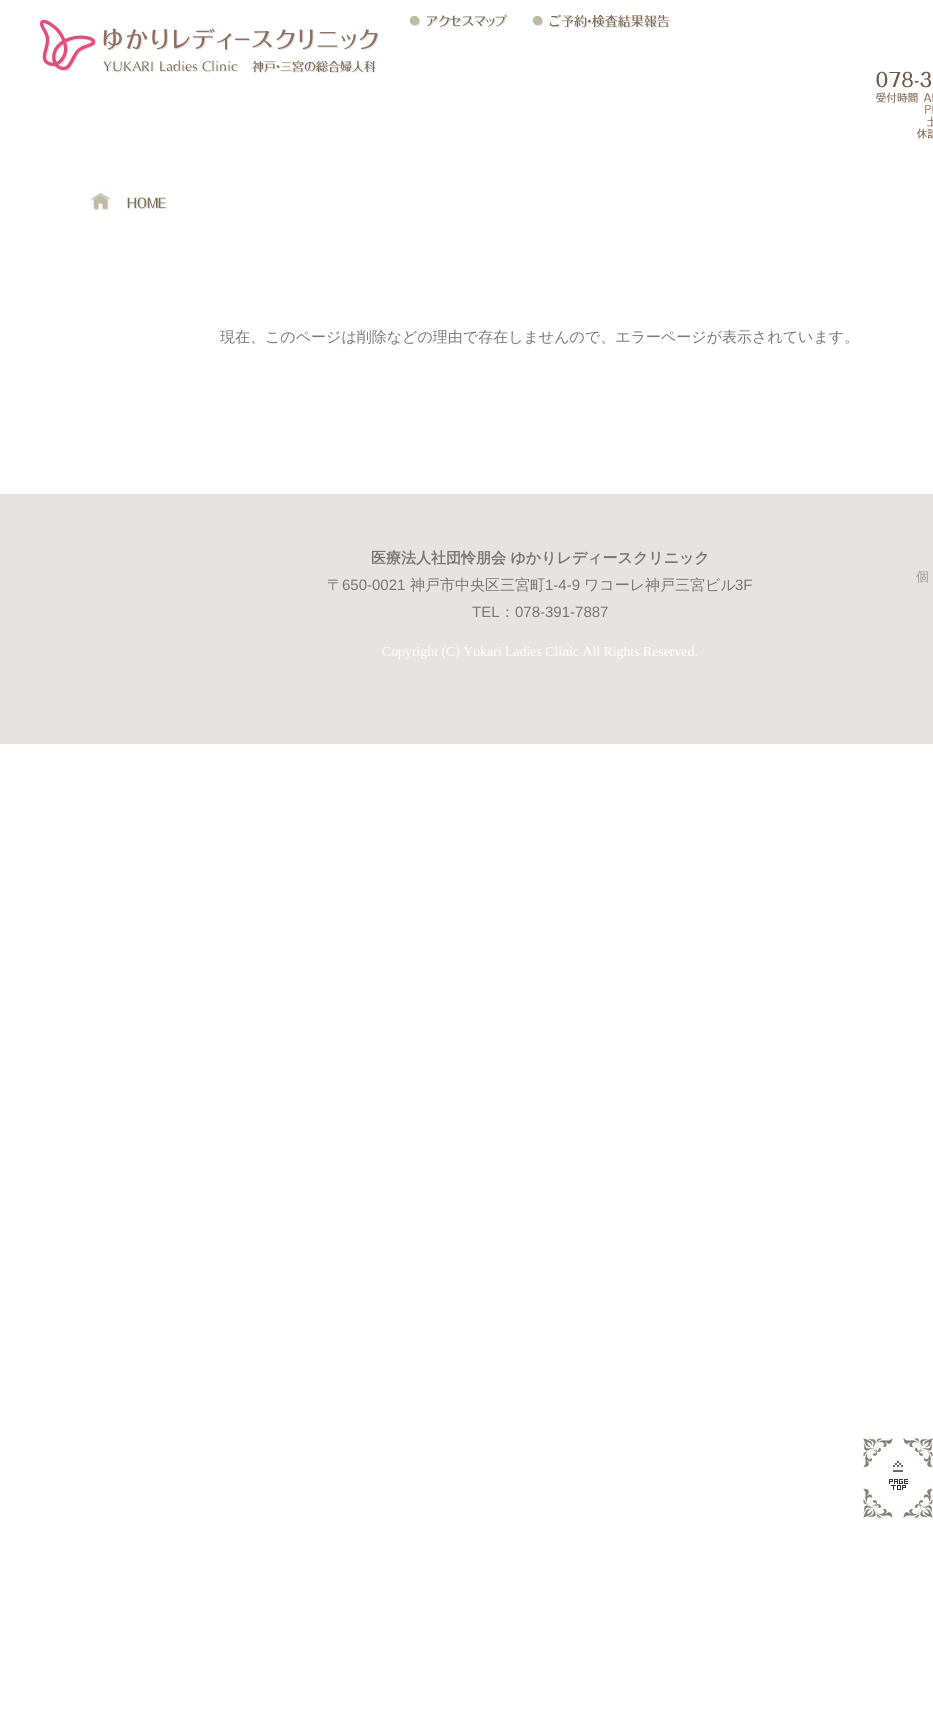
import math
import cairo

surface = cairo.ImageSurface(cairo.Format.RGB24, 933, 1720)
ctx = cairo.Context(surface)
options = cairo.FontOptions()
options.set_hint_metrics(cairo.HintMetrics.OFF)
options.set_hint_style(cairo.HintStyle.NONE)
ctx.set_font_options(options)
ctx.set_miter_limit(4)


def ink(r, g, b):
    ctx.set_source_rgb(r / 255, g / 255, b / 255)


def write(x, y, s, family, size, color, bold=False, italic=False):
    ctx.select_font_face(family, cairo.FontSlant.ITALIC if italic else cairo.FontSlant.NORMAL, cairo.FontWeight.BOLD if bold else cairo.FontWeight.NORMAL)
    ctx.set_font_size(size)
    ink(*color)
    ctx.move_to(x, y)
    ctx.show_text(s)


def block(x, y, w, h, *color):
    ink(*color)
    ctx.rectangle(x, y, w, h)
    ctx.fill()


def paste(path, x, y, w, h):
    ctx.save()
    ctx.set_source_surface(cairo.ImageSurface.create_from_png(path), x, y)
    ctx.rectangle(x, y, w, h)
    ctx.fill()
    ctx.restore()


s1 = dict(family="WenQuanYi Zen Hei Medium", size=15, color=(119, 119, 119))
s2 = dict(family="WenQuanYi Zen Hei", size=15, color=(119, 119, 119), bold=True)
s3 = dict(family="Liberation Sans", size=15, color=(119, 119, 119))
s4 = dict(family="WenQuanYi Zen Hei Medium", size=13, color=(153, 153, 153))
s5 = dict(family="Liberation Serif", size=13.8, color=(255, 255, 255))

ink(255, 255, 255)
ctx.paint()
paste("pic1.png", 40, 20, 339, 53)
paste("pic2.png", 410, 14, 98, 14)
paste("pic3.png", 533, 14, 138, 15)
paste("pic4.png", 876, 71, 57, 68)
paste("pic5.png", 88, 188, 80, 24)
write(220, 342, "現在、このページは削除などの理由で存在しませんので、エラーページが表示されています。", **s1)
block(0, 494, 933, 250, 231, 227, 226)
write(371, 563, "医療法人社団怜朋会 ゆかりレディースクリニック", **s2)
write(327, 590, "〒", **s1)
write(342, 590, "650-0021", **s3)
write(410, 590, "神戸市中央区三宮町", **s1)
write(545, 590, "1-4-9", **s3)
write(584, 590, "ワコーレ神戸三宮ビル", **s1)
write(735, 590, "3F", **s3)
write(472, 617, "TEL", **s3)
write(500, 617, "：", **s1)
write(515, 617, "078-391-7887", **s3)
write(916, 581, "個", **s4)
write(382, 656, "Copyright (C) Yukari Ladies Clinic All Rights Reserved.", **s5)
paste("pic6.png", 863, 1438, 70, 80)
surface.write_to_png("screenshot.png")
